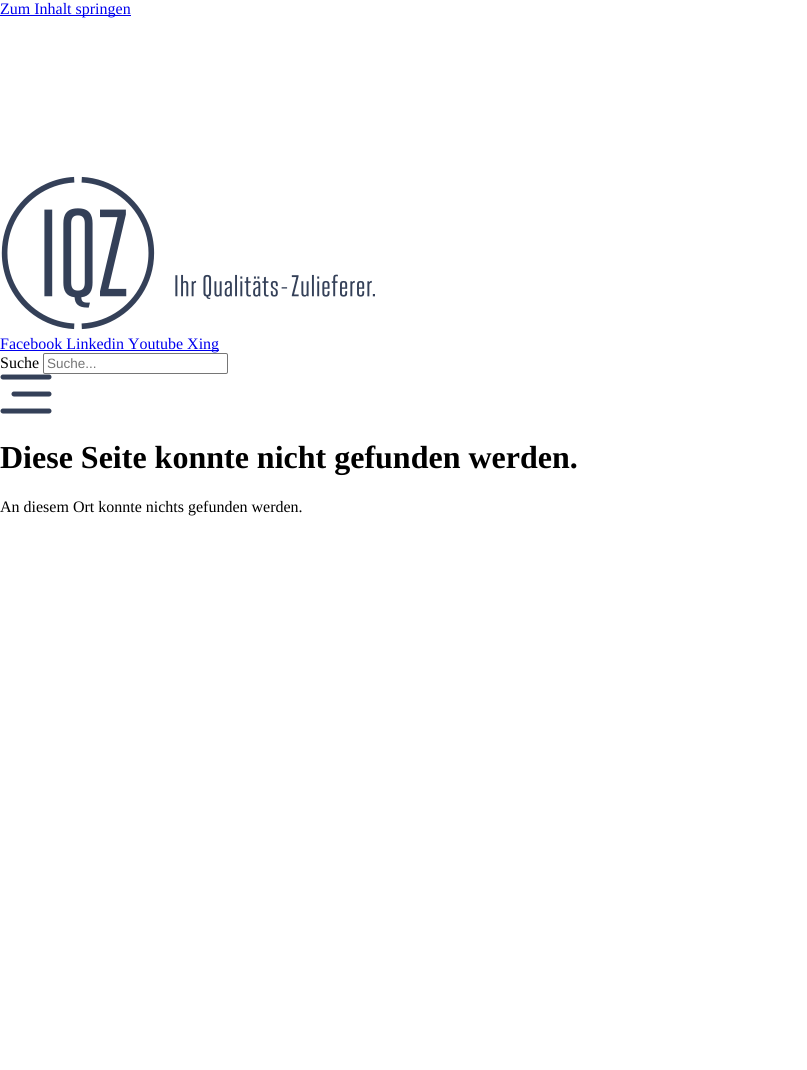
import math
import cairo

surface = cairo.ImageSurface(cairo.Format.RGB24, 807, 1070)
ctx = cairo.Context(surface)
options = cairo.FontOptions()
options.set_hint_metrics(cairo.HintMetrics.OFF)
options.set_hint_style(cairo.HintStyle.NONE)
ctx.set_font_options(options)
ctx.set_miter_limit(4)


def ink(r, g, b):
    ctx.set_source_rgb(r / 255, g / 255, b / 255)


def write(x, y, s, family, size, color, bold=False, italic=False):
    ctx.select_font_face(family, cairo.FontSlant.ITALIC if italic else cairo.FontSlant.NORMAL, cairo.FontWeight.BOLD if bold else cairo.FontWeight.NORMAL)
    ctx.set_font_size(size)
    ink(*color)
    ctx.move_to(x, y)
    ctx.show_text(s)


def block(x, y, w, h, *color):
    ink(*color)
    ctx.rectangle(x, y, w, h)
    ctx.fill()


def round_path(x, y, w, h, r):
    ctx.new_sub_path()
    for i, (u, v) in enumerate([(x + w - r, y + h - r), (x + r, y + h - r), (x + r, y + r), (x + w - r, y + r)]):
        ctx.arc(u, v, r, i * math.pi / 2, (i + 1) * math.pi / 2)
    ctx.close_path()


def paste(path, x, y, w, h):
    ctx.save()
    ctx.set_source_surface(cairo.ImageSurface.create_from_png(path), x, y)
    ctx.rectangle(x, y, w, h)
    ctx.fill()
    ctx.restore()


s1 = dict(family="Liberation Serif", size=16, color=(0, 0, 238))
s2 = dict(family="Liberation Serif", size=16, color=(0, 0, 0))
s3 = dict(family="Liberation Sans", size=13.5, color=(117, 117, 117))
s4 = dict(family="Liberation Serif", size=32, color=(0, 0, 0), bold=True)

ink(255, 255, 255)
ctx.paint()
block(0, 15, 131, 1, 0, 0, 238)
write(0, 14, "Zum Inhalt springen", **s1)
paste("pic1.png", 1, 176, 374, 154)
block(0, 350, 219, 1, 0, 0, 238)
write(0, 349, "Facebook Linkedin Youtube Xing", **s1)
write(0, 368, "Suche", **s2)
round_path(43.5, 353.5, 184, 20, 1.5)
ink(118, 118, 118)
ctx.set_line_width(1)
ctx.stroke()
write(47, 368, "Suche...", **s3)
ctx.new_path()
ctx.move_to(3, 377)
ctx.line_to(49, 377)
ctx.move_to(14, 394)
ctx.line_to(49, 394)
ctx.move_to(3, 411)
ctx.line_to(49, 411)
ink(52, 64, 88)
ctx.set_line_width(5)
ctx.set_line_cap(cairo.LineCap.ROUND)
ctx.stroke()
write(0, 468, "Diese Seite konnte nicht gefunden werden.", **s4)
write(0, 512, "An diesem Ort konnte nichts gefunden werden.", **s2)
surface.write_to_png("screenshot.png")
